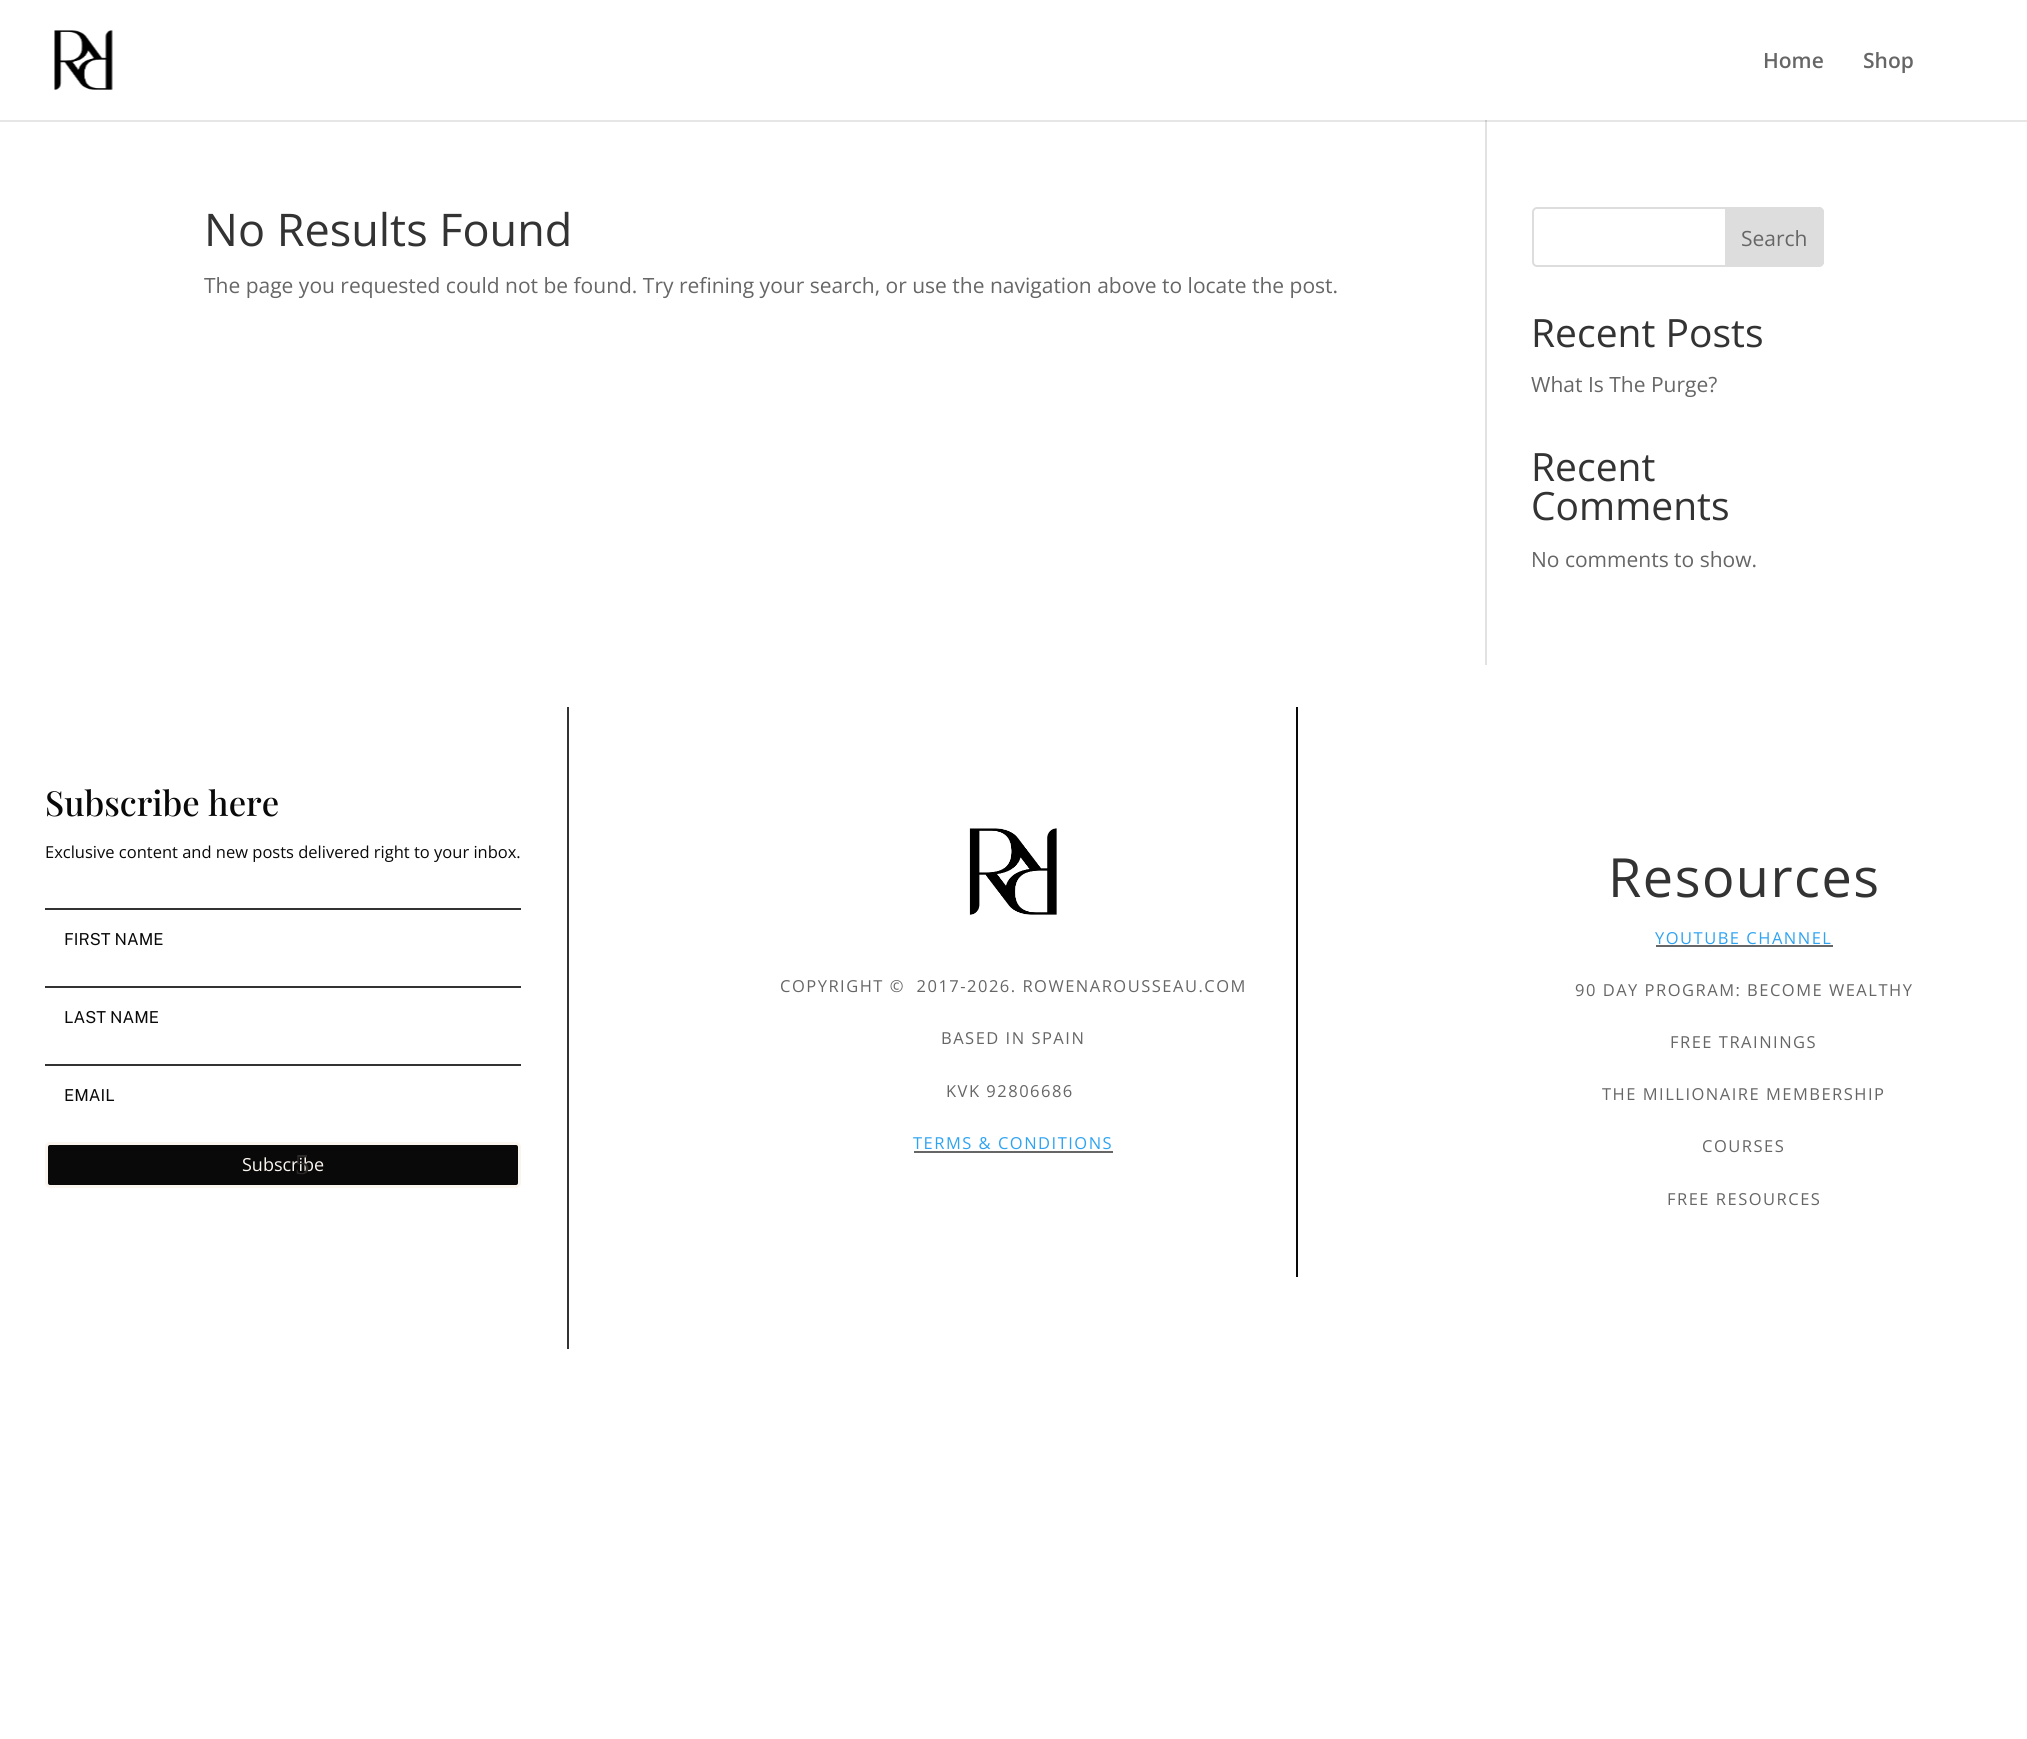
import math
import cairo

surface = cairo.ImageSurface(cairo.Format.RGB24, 2027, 1739)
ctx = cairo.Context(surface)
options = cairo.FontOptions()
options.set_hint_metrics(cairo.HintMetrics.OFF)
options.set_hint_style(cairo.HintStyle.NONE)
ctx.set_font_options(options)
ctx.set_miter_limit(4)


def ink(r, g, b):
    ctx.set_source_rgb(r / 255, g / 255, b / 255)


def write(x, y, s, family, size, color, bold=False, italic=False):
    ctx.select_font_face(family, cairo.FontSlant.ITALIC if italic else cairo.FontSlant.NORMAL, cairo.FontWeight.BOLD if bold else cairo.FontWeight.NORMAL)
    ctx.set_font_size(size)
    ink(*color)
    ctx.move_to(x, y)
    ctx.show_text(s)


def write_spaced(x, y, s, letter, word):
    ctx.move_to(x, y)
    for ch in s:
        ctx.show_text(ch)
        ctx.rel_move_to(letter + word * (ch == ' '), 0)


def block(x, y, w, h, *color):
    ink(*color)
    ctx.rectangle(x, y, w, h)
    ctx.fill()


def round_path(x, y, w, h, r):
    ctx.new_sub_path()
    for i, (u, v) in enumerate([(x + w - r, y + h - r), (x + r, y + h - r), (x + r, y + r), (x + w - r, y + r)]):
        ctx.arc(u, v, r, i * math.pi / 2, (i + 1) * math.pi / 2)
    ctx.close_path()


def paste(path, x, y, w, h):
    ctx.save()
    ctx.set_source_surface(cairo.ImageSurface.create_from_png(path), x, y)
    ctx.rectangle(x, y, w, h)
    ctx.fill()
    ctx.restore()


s1 = dict(family="Open Sans SemiBold", size=21, color=(102, 102, 102))
s2 = dict(family="Open Sans", size=45, color=(51, 51, 51))
s3 = dict(family="Open Sans", size=21, color=(102, 102, 102))
s4 = dict(family="Open Sans", size=39, color=(51, 51, 51))
s5 = dict(family="Playfair Display Medium", size=34.5, color=(10, 9, 9))
s6 = dict(family="Open Sans", size=16.5, color=(10, 9, 9))
s7 = dict(family="Public Sans", size=16.5, color=(10, 9, 9))
s8 = dict(family="Open Sans", size=18, color=(251, 245, 240))
s9 = dict(family="Liberation Serif", size=29, color=(44, 42, 41))

ink(255, 255, 255)
ctx.paint()
block(0, 120, 2027, 2, 230, 230, 230)
paste("pic1.png", 54, 30, 59, 60)
write(1763, 68, "Home", **s1)
write(1863, 68, "Shop", **s1)
block(1485, 120, 2, 545, 226, 226, 226)
block(1485, 120, 2, 2, 203, 203, 203)
write(204, 246, "No Results Found", **s2)
write(204, 293, "The page you requested could not be found. Try refining your search, or use the navigation above to locate the post.", **s3)
round_path(1533, 208, 290, 58, 4)
ink(221, 221, 221)
ctx.stroke()
ctx.new_path()
ctx.move_to(1726, 208)
ctx.line_to(1819, 208)
ctx.curve_to(1821, 208, 1823, 210, 1823, 212)
ctx.line_to(1823, 262)
ctx.curve_to(1823, 264, 1821, 266, 1819, 266)
ctx.line_to(1726, 266)
ctx.close_path()
ctx.fill_preserve()
ctx.stroke()
write(1741, 246, "Search", **s3)
write(1531, 347, "Recent Posts", **s4)
write(1531, 392, "What Is The Purge?", **s3)
write(1531, 481, "Recent", **s4)
write(1531, 520, "Comments", **s4)
write(1531, 567, "No comments to show.", **s3)
block(567, 707, 2, 642, 51, 51, 51)
write(45, 816, "Subscribe here", **s5)
write(45, 858, "Exclusive content and new posts delivered right to your inbox.", **s6)
block(45, 908, 476, 2, 51, 51, 51)
write(64, 945, "FIRST NAME", **s7)
block(45, 986, 476, 2, 51, 51, 51)
write(64, 1023, "LAST NAME", **s7)
block(45, 1064, 476, 2, 51, 51, 51)
write(64, 1101, "EMAIL", **s7)
round_path(46.5, 1143.5, 473, 43, 3.5)
ctx.fill_preserve()
ink(251, 245, 240)
ctx.set_line_width(3)
ctx.stroke()
write(242, 1171, "Subscribe", **s8)
write(295, 1174, "5", **s9)
block(1296, 707, 2, 570, 10, 9, 9)
paste("pic2.png", 969, 828, 88, 87)
ctx.select_font_face("Open Sans")
ctx.set_font_size(16.5)
ink(102, 102, 102)
write_spaced(780, 992, "COPYRIGHT ©  2017-2026. ROWENAROUSSEAU.COM", 1.5, 0)
write_spaced(941, 1044, "BASED IN SPAIN", 1.5, 0)
write_spaced(946, 1097, "KVK 92806686", 1.5, 0)
ink(46, 163, 242)
write_spaced(913, 1149, "TERMS & CONDITIONS", 1.5, 0)
block(914, 1151, 199, 2, 102, 102, 102)
ctx.set_font_size(54)
ink(51, 51, 51)
write_spaced(1608, 897, "Resources", 1.5, 0)
ctx.set_font_size(16.5)
ink(46, 163, 242)
write_spaced(1655, 944, "YOUTUBE CHANNEL", 1.5, 0)
block(1656, 945, 177, 2, 102, 102, 102)
write_spaced(1575, 996, "90 DAY PROGRAM: BECOME WEALTHY", 1.5, 0)
write_spaced(1670, 1048, "FREE TRAININGS", 1.5, 0)
write_spaced(1602, 1100, "THE MILLIONAIRE MEMBERSHIP", 1.5, 0)
write_spaced(1702, 1152, "COURSES", 1.5, 0)
write_spaced(1667, 1205, "FREE RESOURCES", 1.5, 0)
surface.write_to_png("screenshot.png")
